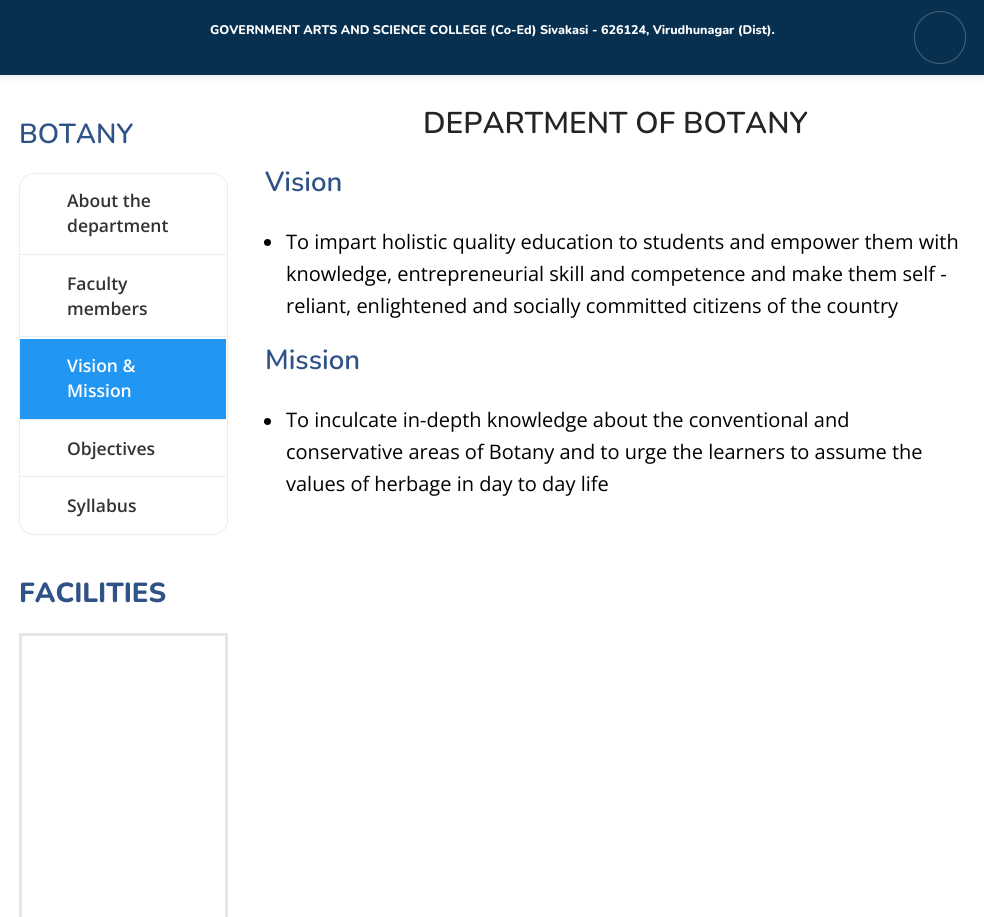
import math
import cairo

surface = cairo.ImageSurface(cairo.Format.RGB24, 984, 917)
ctx = cairo.Context(surface)
options = cairo.FontOptions()
options.set_hint_metrics(cairo.HintMetrics.OFF)
options.set_hint_style(cairo.HintStyle.NONE)
ctx.set_font_options(options)
ctx.set_miter_limit(4)


def ink(r, g, b):
    ctx.set_source_rgb(r / 255, g / 255, b / 255)


def write(x, y, s, family, size, color, bold=False, italic=False):
    ctx.select_font_face(family, cairo.FontSlant.ITALIC if italic else cairo.FontSlant.NORMAL, cairo.FontWeight.BOLD if bold else cairo.FontWeight.NORMAL)
    ctx.set_font_size(size)
    ink(*color)
    ctx.move_to(x, y)
    ctx.show_text(s)


def block(x, y, w, h, *color):
    ink(*color)
    ctx.rectangle(x, y, w, h)
    ctx.fill()


def round_path(x, y, w, h, r):
    ctx.new_sub_path()
    for i, (u, v) in enumerate([(x + w - r, y + h - r), (x + r, y + h - r), (x + r, y + r), (x + w - r, y + r)]):
        ctx.arc(u, v, r, i * math.pi / 2, (i + 1) * math.pi / 2)
    ctx.close_path()


def blur_box(x, y, w, h, r, blur, alpha):
    ctx.push_group_with_content(cairo.Content.ALPHA)
    ctx.set_operator(cairo.Operator.SOURCE)
    for i in range(15, -16, -2):
        e = blur * i / 6
        if min(w, h) + 2 * e > 0:
            ctx.set_source_rgba(0, 0, 0, alpha * math.erfc((i - 1) / 8.5) / 2)
            round_path(x - e, y - e, w + 2 * e, h + 2 * e, max(0, min(r + e + blur * .6, min(w, h) / 2 + e)))
            ctx.fill()
    ctx.mask(ctx.pop_group())


s1 = dict(family="Nunito ExtraBold", size=12.5, color=(255, 255, 255))
s2 = dict(family="Nunito SemiBold", size=27.5, color=(48, 83, 135))
s3 = dict(family="Open Sans SemiBold", size=17.5, color=(51, 51, 51))
s4 = dict(family="Open Sans SemiBold", size=17.5, color=(255, 255, 255))
s5 = dict(family="Nunito ExtraBold", size=27.5, color=(48, 83, 135))
s6 = dict(family="Nunito SemiBold", size=30, color=(36, 36, 36))
s7 = dict(family="Open Sans", size=20, color=(0, 0, 0))

ink(255, 255, 255)
ctx.paint()
ink(0, 0, 0)
blur_box(0, 1, 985, 75, 0, 5, 0.1)
block(0, 0, 984, 75, 7, 47, 79)
write(210, 34, "GOVERNMENT ARTS AND SCIENCE COLLEGE (Co-Ed) Sivakasi - 626124, Virudhunagar (Dist).", **s1)
round_path(914.5, 11.5, 51, 52, 25.5)
ink(69, 99, 123)
ctx.set_line_width(1)
ctx.stroke()
write(19, 143, "BOTANY", **s2)
round_path(19.5, 173.5, 208, 361, 14.5)
ink(236, 236, 236)
ctx.stroke()
block(20, 254, 206, 1, 236, 236, 236)
write(67, 207, "About the", **s3)
write(67, 232, "department", **s3)
block(20, 336, 206, 1, 236, 236, 236)
write(67, 290, "Faculty", **s3)
write(67, 315, "members", **s3)
block(20, 419, 206, 1, 236, 236, 236)
block(20, 339, 206, 80, 33, 150, 243)
write(67, 372, "Vision &", **s4)
write(67, 397, "Mission", **s4)
block(20, 476, 206, 1, 236, 236, 236)
write(67, 455, "Objectives", **s3)
write(67, 512, "Syllabus", **s3)
write(19, 602, "FACILITIES", **s5)
ctx.rectangle(20.5, 634.5, 206, 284)
ink(229, 229, 229)
ctx.set_line_width(3)
ctx.stroke()
write(423, 133, "DEPARTMENT OF BOTANY", **s6)
write(265, 191, "Vision", **s2)
ink(0, 0, 0)
ctx.new_path()
ctx.arc(267.5, 242.5, 3.5, 0, 2 * math.pi)
ctx.fill()
write(286, 249, "To impart holistic quality education to students and empower them with", **s7)
write(286, 281, "knowledge, entrepreneurial skill and competence and make them self -", **s7)
write(286, 313, "reliant, enlightened and socially committed citizens of the country", **s7)
write(265, 369, "Mission", **s2)
ink(0, 0, 0)
ctx.new_path()
ctx.arc(267.5, 421.5, 3.5, 0, 2 * math.pi)
ctx.fill()
write(286, 427, "To inculcate in-depth knowledge about the conventional and", **s7)
write(286, 459, "conservative areas of Botany and to urge the learners to assume the", **s7)
write(286, 491, "values of herbage in day to day life", **s7)
surface.write_to_png("screenshot.png")
